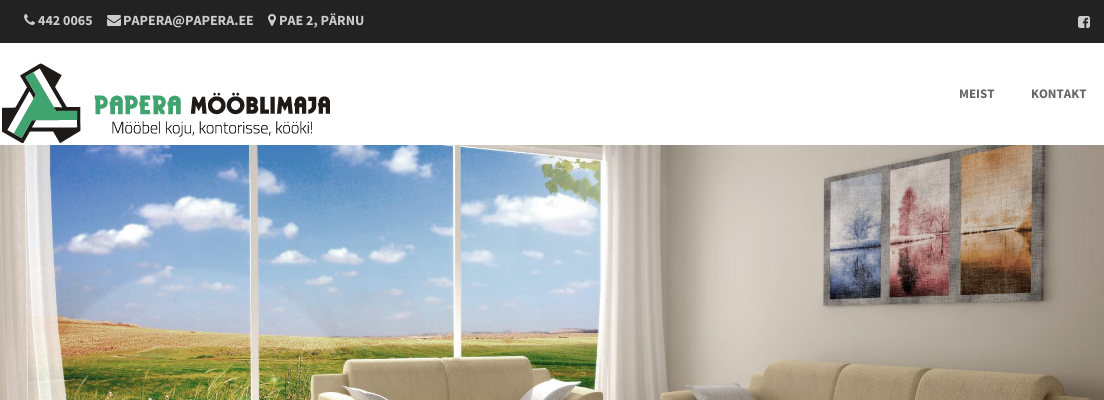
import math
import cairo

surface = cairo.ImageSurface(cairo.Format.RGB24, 1104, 400)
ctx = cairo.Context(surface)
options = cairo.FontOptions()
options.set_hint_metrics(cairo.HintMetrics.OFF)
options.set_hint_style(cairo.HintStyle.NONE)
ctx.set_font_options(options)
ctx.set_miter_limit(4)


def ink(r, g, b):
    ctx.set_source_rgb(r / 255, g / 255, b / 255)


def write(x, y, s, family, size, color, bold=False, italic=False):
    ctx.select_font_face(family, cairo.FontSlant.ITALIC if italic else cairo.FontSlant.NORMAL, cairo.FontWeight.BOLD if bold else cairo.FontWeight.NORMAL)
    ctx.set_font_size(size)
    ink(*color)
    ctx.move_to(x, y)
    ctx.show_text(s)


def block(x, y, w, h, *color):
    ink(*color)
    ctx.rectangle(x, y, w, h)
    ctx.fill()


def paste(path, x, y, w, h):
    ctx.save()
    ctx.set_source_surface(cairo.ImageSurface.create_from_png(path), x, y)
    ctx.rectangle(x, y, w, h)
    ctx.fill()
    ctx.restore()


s1 = dict(family="Source Sans Pro", size=14, color=(204, 204, 204), bold=True)
s2 = dict(family="Source Sans Pro", size=13, color=(102, 102, 102), bold=True)

ink(255, 255, 255)
ctx.paint()
block(0, 0, 1104, 43, 34, 34, 34)
paste("pic1.png", 24, 14, 11, 11)
write(38, 25, "442 0065", **s1)
paste("pic2.png", 107, 15, 14, 11)
write(123, 25, "PAPERA@PAPERA.EE", **s1)
paste("pic3.png", 268, 14, 8, 12)
write(279, 25, "PAE 2, PÄRNU", **s1)
paste("pic4.png", 1078, 16, 12, 12)
paste("pic5.png", 2, 63, 328, 81)
write(959, 98, "MEIST", **s2)
write(1031, 98, "KONTAKT", **s2)
paste("pic6.png", 0, 145, 1104, 255)
surface.write_to_png("screenshot.png")
